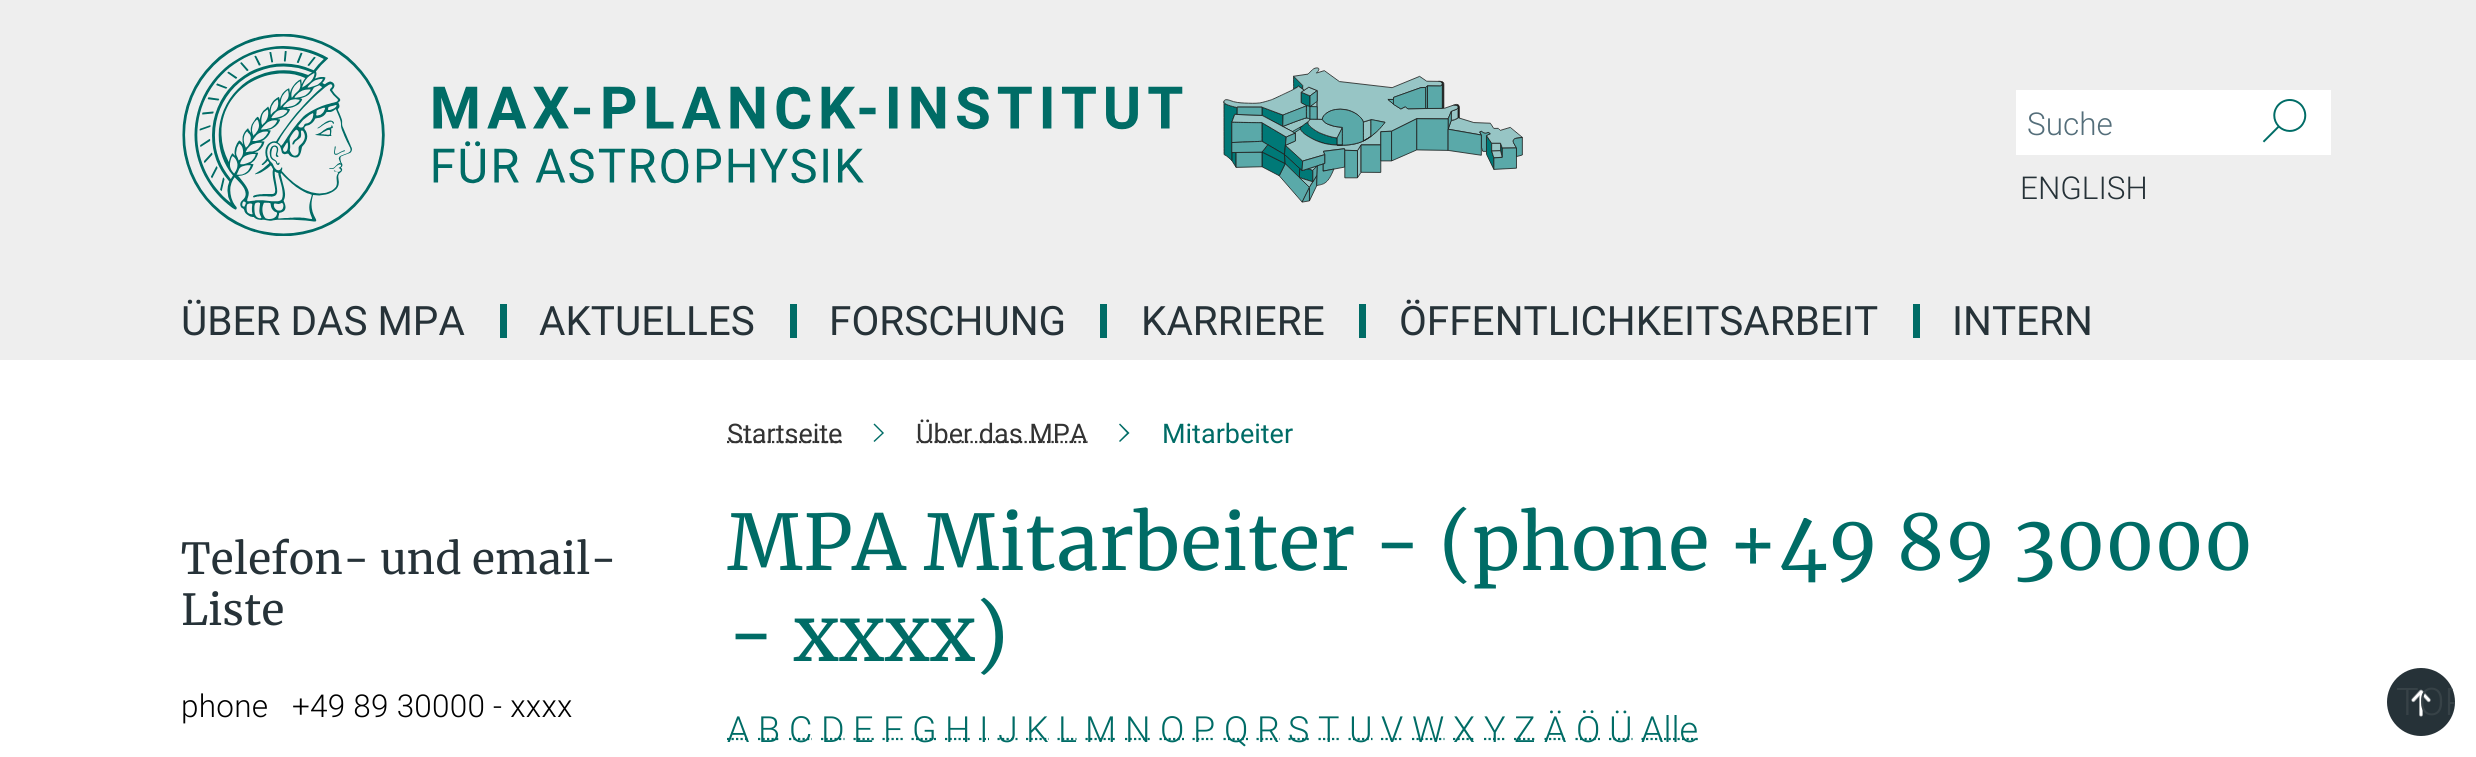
import math
import cairo

surface = cairo.ImageSurface(cairo.Format.RGB24, 2476, 757)
ctx = cairo.Context(surface)
options = cairo.FontOptions()
options.set_hint_metrics(cairo.HintMetrics.OFF)
options.set_hint_style(cairo.HintStyle.NONE)
ctx.set_font_options(options)
ctx.set_miter_limit(4)


def ink(r, g, b):
    ctx.set_source_rgb(r / 255, g / 255, b / 255)


def write(x, y, s, family, size, color, bold=False, italic=False):
    ctx.select_font_face(family, cairo.FontSlant.ITALIC if italic else cairo.FontSlant.NORMAL, cairo.FontWeight.BOLD if bold else cairo.FontWeight.NORMAL)
    ctx.set_font_size(size)
    ink(*color)
    ctx.move_to(x, y)
    ctx.show_text(s)


def write_spaced(x, y, s, letter, word):
    ctx.move_to(x, y)
    for ch in s:
        ctx.show_text(ch)
        ctx.rel_move_to(letter + word * (ch == ' '), 0)


def block(x, y, w, h, *color):
    ink(*color)
    ctx.rectangle(x, y, w, h)
    ctx.fill()


def round_path(x, y, w, h, r):
    ctx.new_sub_path()
    for i, (u, v) in enumerate([(x + w - r, y + h - r), (x + r, y + h - r), (x + r, y + r), (x + w - r, y + r)]):
        ctx.arc(u, v, r, i * math.pi / 2, (i + 1) * math.pi / 2)
    ctx.close_path()


def paste(path, x, y, w, h):
    ctx.save()
    ctx.set_source_surface(cairo.ImageSurface.create_from_png(path), x, y)
    ctx.rectangle(x, y, w, h)
    ctx.fill()
    ctx.restore()


s1 = dict(family="Roboto Light", size=31.5, color=(84, 110, 122))
s2 = dict(family="Roboto Light", size=31.5, color=(38, 50, 56))
s3 = dict(family="Roboto", size=40.5, color=(38, 50, 56))
s4 = dict(family="Merriweather", size=42.75, color=(38, 50, 56))
s5 = dict(family="Roboto", size=27, color=(51, 51, 51))
s6 = dict(family="Roboto", size=27, color=(0, 108, 102))
s7 = dict(family="Merriweather", size=76.5, color=(0, 108, 102))
s8 = dict(family="Roboto Light", size=36, color=(0, 108, 102))
s9 = dict(family="Roboto Light", size=38, color=(55, 66, 71))

ink(255, 255, 255)
ctx.paint()
block(0, 0, 2476, 360, 238, 238, 238)
paste("pic1.png", 182, 34, 1341, 202)
block(2016, 90, 315, 65, 255, 255, 255)
write(2027, 135, "Suche", **s1)
paste("pic2.png", 2262, 99, 45, 44)
write(2020, 199, "ENGLISH", **s2)
block(500, 304, 7, 34, 0, 108, 102)
write(181, 335, "ÜBER DAS MPA", **s3)
block(790, 304, 7, 34, 0, 108, 102)
write(539, 335, "AKTUELLES", **s3)
block(1100, 304, 7, 34, 0, 108, 102)
write(829, 335, "FORSCHUNG", **s3)
block(1359, 304, 7, 34, 0, 108, 102)
write(1141, 335, "KARRIERE", **s3)
block(1913, 304, 7, 34, 0, 108, 102)
write(1399, 335, "ÖFFENTLICHKEITSARBEIT", **s3)
write(1952, 335, "INTERN", **s3)
write(181, 574, "Telefon- und email-", **s4)
write(181, 625, "Liste", **s4)
ctx.select_font_face("Roboto Light")
ctx.set_font_size(31.5)
ink(0, 0, 0)
write_spaced(181, 717, "phone   +49 89 30000 - xxxx", 0.25, 0)
ctx.new_path()
ctx.move_to(727, 442)
ctx.line_to(842, 442)
ink(51, 51, 51)
ctx.set_line_width(2.2)
ctx.set_dash([2.25, 2.25])
ctx.stroke()
write(727, 443, "Startseite", **s5)
ink(0, 108, 102)
ctx.new_path()
ctx.move_to(873.5, 441)
ctx.line_to(882, 433)
ctx.line_to(873.5, 424.5)
ctx.line_to(874.5, 423.5)
ctx.line_to(884, 433)
ctx.line_to(874.5, 442)
ctx.close_path()
ctx.fill()
ctx.new_path()
ctx.move_to(916.5, 442)
ctx.line_to(1088, 442)
ink(51, 51, 51)
ctx.stroke()
write(916, 443, "Über das MPA", **s5)
ink(0, 108, 102)
ctx.new_path()
ctx.move_to(1119, 441)
ctx.line_to(1127, 433)
ctx.line_to(1119, 424.5)
ctx.line_to(1120, 423.5)
ctx.line_to(1129.5, 433)
ctx.line_to(1120, 442)
ctx.close_path()
ctx.fill()
write(1162, 443, "Mitarbeiter", **s6)
write(727, 570, "MPA Mitarbeiter - (phone +49 89 30000", **s7)
write(727, 661, "- xxxx)", **s7)
ctx.new_path()
ctx.move_to(727, 739)
ctx.line_to(749, 739)
ctx.stroke()
write(727, 742, "A", **s8)
ctx.new_path()
ctx.move_to(758, 739)
ctx.line_to(780, 739)
ctx.stroke()
write(758, 742, "B", **s8)
ctx.new_path()
ctx.move_to(789, 739)
ctx.line_to(812, 739)
ctx.stroke()
write(789, 742, "C", **s8)
ctx.new_path()
ctx.move_to(821, 739)
ctx.line_to(844.5, 739)
ctx.stroke()
write(821, 742, "D", **s8)
ctx.new_path()
ctx.move_to(853.5, 739)
ctx.line_to(874, 739)
ctx.stroke()
write(853, 742, "E", **s8)
ctx.new_path()
ctx.move_to(882.5, 739)
ctx.line_to(903, 739)
ctx.stroke()
write(883, 742, "F", **s8)
ctx.new_path()
ctx.move_to(911.5, 739)
ctx.line_to(936, 739)
ctx.stroke()
write(912, 742, "G", **s8)
ctx.new_path()
ctx.move_to(945, 739)
ctx.line_to(970.5, 739)
ctx.stroke()
write(945, 742, "H", **s8)
ctx.new_path()
ctx.move_to(979, 739)
ctx.line_to(981.5, 739)
ctx.move_to(983.5, 739)
ctx.line_to(986, 739)
ctx.move_to(988, 739)
ctx.line_to(989, 739)
ctx.set_dash([])
ctx.stroke()
write(979, 742, "I", **s8)
ctx.new_path()
ctx.move_to(997.5, 739)
ctx.line_to(1017.5, 739)
ctx.set_dash([2.25, 2.25])
ctx.stroke()
write(998, 742, "J", **s8)
ctx.new_path()
ctx.move_to(1026, 739)
ctx.line_to(1049, 739)
ctx.stroke()
write(1026, 742, "K", **s8)
ctx.new_path()
ctx.move_to(1057.5, 739)
ctx.line_to(1076.5, 739)
ctx.stroke()
write(1058, 742, "L", **s8)
ctx.new_path()
ctx.move_to(1085.5, 739)
ctx.line_to(1116.5, 739)
ctx.stroke()
write(1085, 742, "M", **s8)
ctx.new_path()
ctx.move_to(1125, 739)
ctx.line_to(1151, 739)
ctx.stroke()
write(1125, 742, "N", **s8)
ctx.new_path()
ctx.move_to(1159.5, 739)
ctx.line_to(1184, 739)
ctx.stroke()
write(1160, 742, "O", **s8)
ctx.new_path()
ctx.move_to(1192.5, 739)
ctx.line_to(1215, 739)
ctx.stroke()
write(1193, 742, "P", **s8)
ctx.new_path()
ctx.move_to(1223.5, 739)
ctx.line_to(1248, 739)
ctx.stroke()
write(1224, 742, "Q", **s8)
ctx.new_path()
ctx.move_to(1256.5, 739)
ctx.line_to(1279.5, 739)
ctx.stroke()
write(1257, 742, "R", **s8)
ctx.new_path()
ctx.move_to(1288.5, 739)
ctx.line_to(1309.5, 739)
ctx.stroke()
write(1288, 742, "S", **s8)
ctx.new_path()
ctx.move_to(1318.5, 739)
ctx.line_to(1340, 739)
ctx.stroke()
write(1318, 742, "T", **s8)
ctx.new_path()
ctx.move_to(1348.5, 739)
ctx.line_to(1372.5, 739)
ctx.stroke()
write(1349, 742, "U", **s8)
ctx.new_path()
ctx.move_to(1381, 739)
ctx.line_to(1403.5, 739)
ctx.stroke()
write(1381, 742, "V", **s8)
ctx.new_path()
ctx.move_to(1412, 739)
ctx.line_to(1444.5, 739)
ctx.stroke()
write(1412, 742, "W", **s8)
ctx.new_path()
ctx.move_to(1453, 739)
ctx.line_to(1475, 739)
ctx.stroke()
write(1453, 742, "X", **s8)
ctx.new_path()
ctx.move_to(1484, 739)
ctx.line_to(1505.5, 739)
ctx.stroke()
write(1484, 742, "Y", **s8)
ctx.new_path()
ctx.move_to(1514, 739)
ctx.line_to(1535.5, 739)
ctx.stroke()
write(1514, 742, "Z", **s8)
ctx.new_path()
ctx.move_to(1544.5, 739)
ctx.line_to(1567, 739)
ctx.stroke()
write(1544, 742, "Ä", **s8)
ctx.new_path()
ctx.move_to(1575.5, 739)
ctx.line_to(1600, 739)
ctx.stroke()
write(1576, 742, "Ö", **s8)
ctx.new_path()
ctx.move_to(1609, 739)
ctx.line_to(1632.5, 739)
ctx.stroke()
write(1609, 742, "Ü", **s8)
ctx.new_path()
ctx.move_to(1641.5, 739)
ctx.line_to(1698.5, 739)
ctx.stroke()
write(1641, 742, "Alle", **s8)
ink(38, 50, 56)
ctx.new_path()
ctx.arc(2421, 702, 34, 0, 2 * math.pi)
ctx.fill()
paste("pic3.png", 2411, 689, 20, 28)
ctx.save()
round_path(2387, 668, 68, 68, 34)
ctx.clip()
write(2396, 715, "TOP", **s9)
ctx.restore()
surface.write_to_png("screenshot.png")
